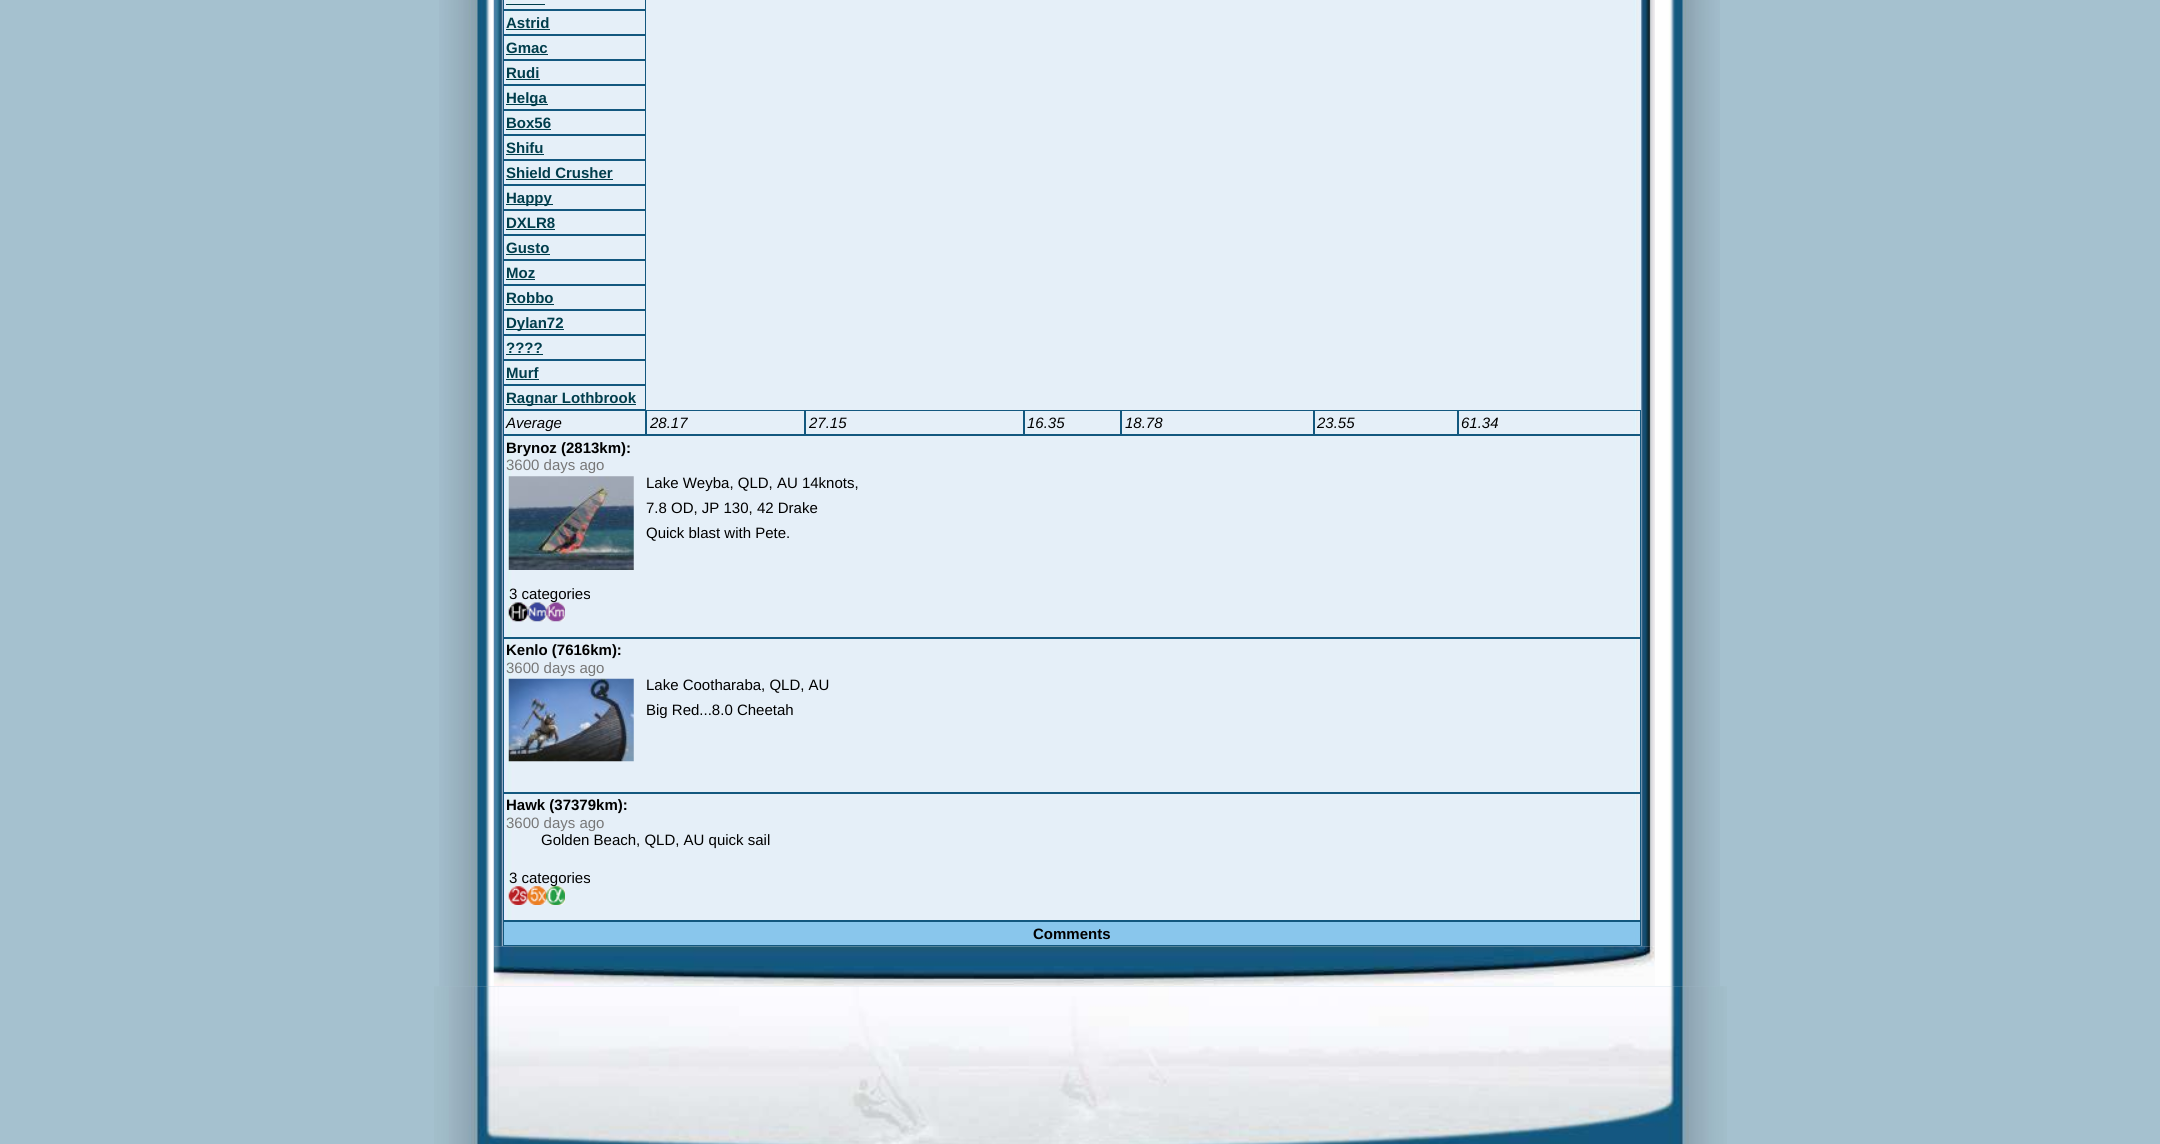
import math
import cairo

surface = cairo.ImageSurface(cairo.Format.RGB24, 2160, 1144)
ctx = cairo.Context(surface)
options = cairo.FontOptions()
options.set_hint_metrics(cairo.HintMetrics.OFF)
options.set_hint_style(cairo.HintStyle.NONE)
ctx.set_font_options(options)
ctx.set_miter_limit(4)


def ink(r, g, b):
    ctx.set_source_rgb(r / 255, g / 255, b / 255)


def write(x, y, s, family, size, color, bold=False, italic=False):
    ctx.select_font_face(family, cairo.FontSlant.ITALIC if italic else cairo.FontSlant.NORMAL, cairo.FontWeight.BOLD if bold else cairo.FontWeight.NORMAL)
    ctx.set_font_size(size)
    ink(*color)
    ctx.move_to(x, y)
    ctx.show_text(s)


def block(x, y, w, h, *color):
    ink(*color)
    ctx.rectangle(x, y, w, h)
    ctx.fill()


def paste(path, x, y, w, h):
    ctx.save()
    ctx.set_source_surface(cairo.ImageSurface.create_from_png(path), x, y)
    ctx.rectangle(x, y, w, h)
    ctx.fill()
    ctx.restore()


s1 = dict(family="Liberation Sans", size=15, color=(0, 61, 76), bold=True)
s2 = dict(family="Liberation Sans", size=15, color=(0, 0, 0), italic=True)
s3 = dict(family="Liberation Sans", size=15, color=(0, 0, 0), bold=True)
s4 = dict(family="Liberation Sans", size=15, color=(119, 119, 119))
s5 = dict(family="Liberation Sans", size=15, color=(0, 0, 0))

ink(165, 193, 207)
ctx.paint()
paste("pic1.png", 439, 0, 1281, 987)
block(491, 0, 1, 986, 255, 255, 255)
paste("pic2.png", 493, 0, 1162, 947)
ctx.rectangle(503.5, -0.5, 142, 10)
ink(19, 88, 127)
ctx.set_line_width(1)
ctx.stroke()
block(506, 4, 39, 1, 0, 61, 76)
ctx.rectangle(503.5, 10.5, 142, 24)
ink(19, 88, 127)
ctx.stroke()
write(506, 28, "Astrid", **s1)
block(506, 29, 44, 1, 0, 61, 76)
ctx.rectangle(503.5, 35.5, 142, 24)
ink(19, 88, 127)
ctx.stroke()
write(506, 53, "Gmac", **s1)
block(506, 54, 42, 1, 0, 61, 76)
ctx.rectangle(503.5, 60.5, 142, 24)
ink(19, 88, 127)
ctx.stroke()
write(506, 78, "Rudi", **s1)
block(506, 79, 34, 1, 0, 61, 76)
ctx.rectangle(503.5, 85.5, 142, 24)
ink(19, 88, 127)
ctx.stroke()
block(506, 104, 42, 1, 0, 61, 76)
write(506, 103, "Helga", **s1)
ctx.rectangle(503.5, 110.5, 142, 24)
ink(19, 88, 127)
ctx.stroke()
write(506, 128, "Box56", **s1)
block(506, 129, 45, 1, 0, 61, 76)
ctx.rectangle(503.5, 135.5, 142, 24)
ink(19, 88, 127)
ctx.stroke()
write(506, 153, "Shifu", **s1)
block(506, 154, 38, 1, 0, 61, 76)
ctx.rectangle(503.5, 160.5, 142, 24)
ink(19, 88, 127)
ctx.stroke()
write(506, 178, "Shield Crusher", **s1)
block(506, 179, 107, 1, 0, 61, 76)
ctx.rectangle(503.5, 185.5, 142, 24)
ink(19, 88, 127)
ctx.stroke()
block(506, 204, 47, 1, 0, 61, 76)
write(506, 203, "Happy", **s1)
ctx.rectangle(503.5, 210.5, 142, 24)
ink(19, 88, 127)
ctx.stroke()
write(506, 228, "DXLR8", **s1)
block(506, 229, 49, 1, 0, 61, 76)
ctx.rectangle(503.5, 235.5, 142, 24)
ink(19, 88, 127)
ctx.stroke()
write(506, 253, "Gusto", **s1)
block(506, 254, 44, 1, 0, 61, 76)
ctx.rectangle(503.5, 260.5, 142, 24)
ink(19, 88, 127)
ctx.stroke()
write(506, 278, "Moz", **s1)
block(506, 279, 29, 1, 0, 61, 76)
ctx.rectangle(503.5, 285.5, 142, 24)
ink(19, 88, 127)
ctx.stroke()
write(506, 303, "Robbo", **s1)
block(506, 304, 48, 1, 0, 61, 76)
ctx.rectangle(503.5, 310.5, 142, 24)
ink(19, 88, 127)
ctx.stroke()
block(506, 329, 58, 1, 0, 61, 76)
write(506, 328, "Dylan72", **s1)
ctx.rectangle(503.5, 335.5, 142, 24)
ink(19, 88, 127)
ctx.stroke()
write(506, 353, "????", **s1)
block(506, 354, 37, 1, 0, 61, 76)
ctx.rectangle(503.5, 360.5, 142, 24)
ink(19, 88, 127)
ctx.stroke()
write(506, 378, "Murf", **s1)
block(506, 379, 33, 1, 0, 61, 76)
ctx.rectangle(503.5, 385.5, 142, 24)
ink(19, 88, 127)
ctx.stroke()
block(506, 404, 130, 1, 0, 61, 76)
write(506, 403, "Ragnar Lothbrook", **s1)
ctx.rectangle(503.5, 410.5, 142, 24)
ink(19, 88, 127)
ctx.stroke()
write(506, 428, "Average", **s2)
ctx.rectangle(646.5, 410.5, 158, 24)
ink(19, 88, 127)
ctx.stroke()
write(650, 428, "28.17", **s2)
ctx.rectangle(805.5, 410.5, 218, 24)
ink(19, 88, 127)
ctx.stroke()
write(809, 428, "27.15", **s2)
ctx.rectangle(1024.5, 410.5, 96, 24)
ink(19, 88, 127)
ctx.stroke()
write(1027, 428, "16.35", **s2)
ctx.rectangle(1121.5, 410.5, 192, 24)
ink(19, 88, 127)
ctx.stroke()
write(1125, 428, "18.78", **s2)
ctx.rectangle(1314.5, 410.5, 143, 24)
ink(19, 88, 127)
ctx.stroke()
write(1317, 428, "23.55", **s2)
ctx.rectangle(1458.5, 410.5, 182, 24)
ink(19, 88, 127)
ctx.stroke()
write(1461, 428, "61.34", **s2)
ctx.rectangle(503.5, 435.5, 1137, 202)
ink(19, 88, 127)
ctx.stroke()
write(506, 453, "Brynoz (2813km):", **s3)
write(506, 470, "3600 days ago", **s4)
paste("pic3.png", 508, 476, 126, 94)
write(646, 488, "Lake Weyba, QLD, AU 14knots,", **s5)
write(646, 513, "7.8 OD, JP 130, 42 Drake", **s5)
write(646, 538, "Quick blast with Pete.", **s5)
write(509, 599, "3 categories", **s5)
paste("pic4.png", 508, 602, 20, 20)
paste("pic5.png", 527, 602, 20, 20)
paste("pic6.png", 546, 602, 19, 20)
ctx.rectangle(503.5, 638.5, 1137, 154)
ink(19, 88, 127)
ctx.stroke()
write(506, 655, "Kenlo (7616km):", **s3)
write(506, 673, "3600 days ago", **s4)
paste("pic7.png", 508, 678, 126, 84)
write(646, 690, "Lake Cootharaba, QLD, AU", **s5)
write(646, 715, "Big Red...8.0 Cheetah", **s5)
ctx.rectangle(503.5, 793.5, 1137, 127)
ink(19, 88, 127)
ctx.stroke()
write(506, 810, "Hawk (37379km):", **s3)
write(506, 828, "3600 days ago", **s4)
write(541, 845, "Golden Beach, QLD, AU quick sail", **s5)
write(509, 883, "3 categories", **s5)
paste("pic8.png", 508, 886, 20, 19)
paste("pic9.png", 527, 886, 20, 19)
paste("pic10.png", 546, 886, 19, 19)
ink(137, 198, 236)
ctx.rectangle(503.5, 921.5, 1137, 24)
ctx.fill_preserve()
ink(19, 88, 127)
ctx.stroke()
write(1033, 939, "Comments", **s3)
paste("pic11.png", 493, 946, 1162, 40)
paste("pic12.png", 434, 986, 1293, 158)
surface.write_to_png("screenshot.png")
